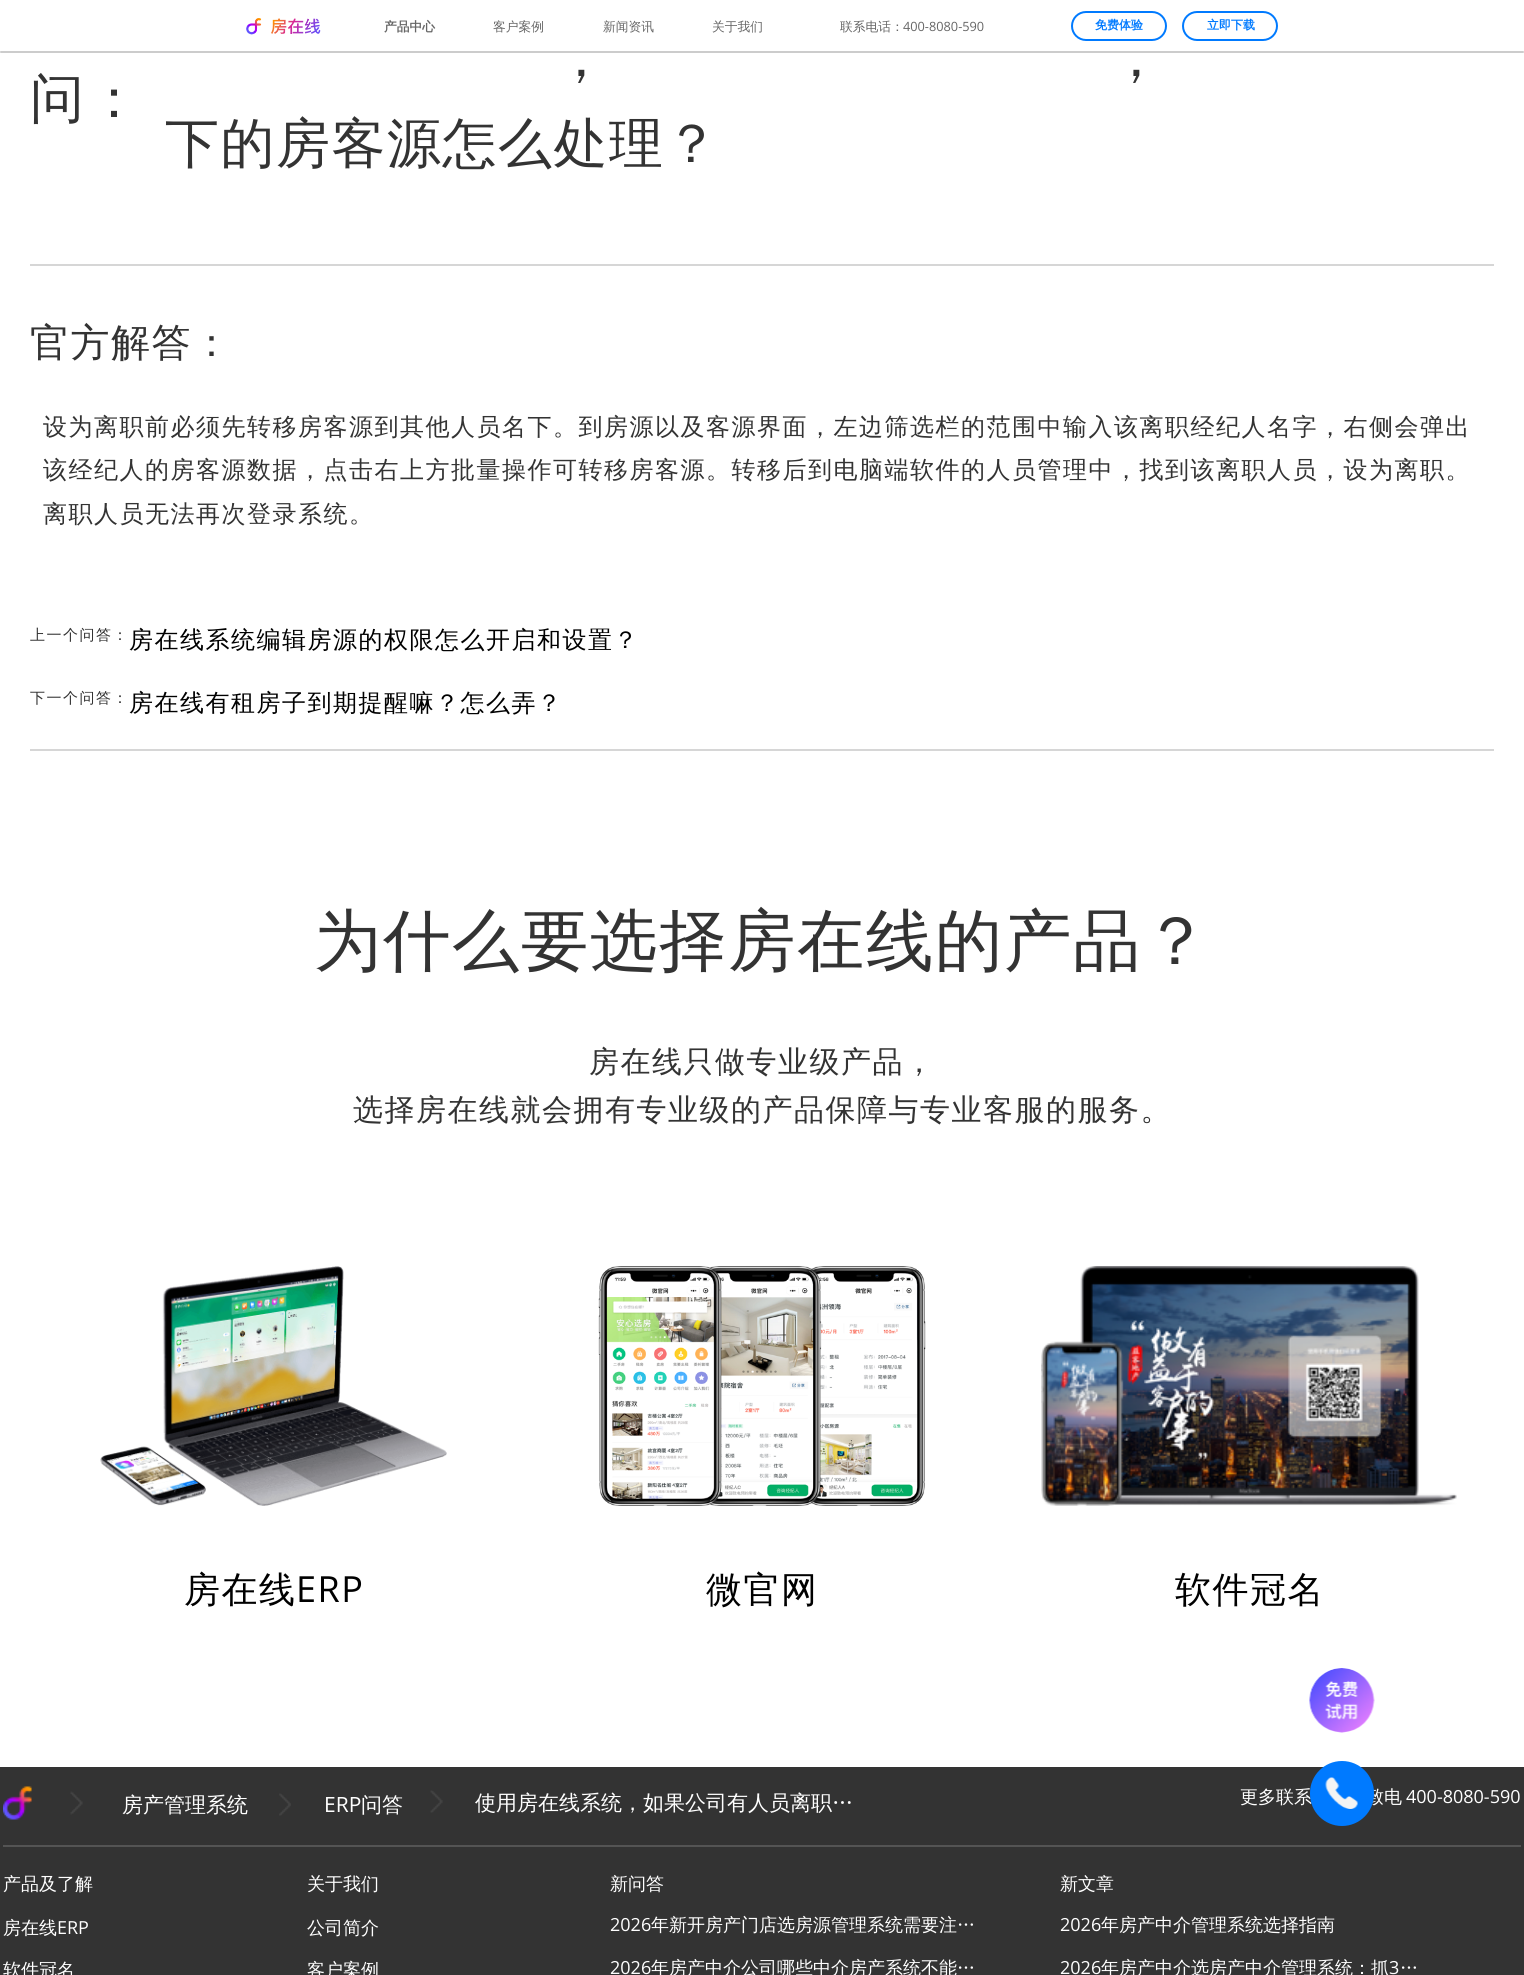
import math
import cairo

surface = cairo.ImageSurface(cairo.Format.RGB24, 1524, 1975)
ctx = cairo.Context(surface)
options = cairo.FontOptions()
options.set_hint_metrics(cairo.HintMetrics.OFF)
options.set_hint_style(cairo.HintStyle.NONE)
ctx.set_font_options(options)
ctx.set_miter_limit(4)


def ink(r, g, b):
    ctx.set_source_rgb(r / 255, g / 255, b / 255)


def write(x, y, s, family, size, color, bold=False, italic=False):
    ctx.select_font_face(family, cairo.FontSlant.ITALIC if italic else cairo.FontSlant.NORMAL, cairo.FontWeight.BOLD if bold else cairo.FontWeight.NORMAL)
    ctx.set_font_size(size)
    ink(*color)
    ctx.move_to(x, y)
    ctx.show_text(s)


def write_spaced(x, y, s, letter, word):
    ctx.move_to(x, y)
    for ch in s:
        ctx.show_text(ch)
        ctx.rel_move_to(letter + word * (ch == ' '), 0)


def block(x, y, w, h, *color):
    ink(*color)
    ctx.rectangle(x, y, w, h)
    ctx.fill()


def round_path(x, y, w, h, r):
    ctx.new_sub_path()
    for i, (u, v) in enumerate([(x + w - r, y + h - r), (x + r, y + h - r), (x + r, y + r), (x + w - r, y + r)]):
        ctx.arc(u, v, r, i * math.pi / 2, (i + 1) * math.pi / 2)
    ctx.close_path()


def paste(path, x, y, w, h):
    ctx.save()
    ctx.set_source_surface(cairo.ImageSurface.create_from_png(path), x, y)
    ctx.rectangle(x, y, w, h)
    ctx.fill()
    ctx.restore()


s1 = dict(family="WenQuanYi Zen Hei", size=12.75, color=(102, 102, 102), bold=True)
s2 = dict(family="WenQuanYi Zen Hei Medium", size=12.75, color=(102, 102, 102))
s3 = dict(family="Open Sans", size=12.75, color=(102, 102, 102))
s4 = dict(family="WenQuanYi Zen Hei", size=12, color=(0, 122, 255), bold=True)
s5 = dict(family="WenQuanYi Zen Hei Medium", size=18, color=(255, 255, 255))
s6 = dict(family="WenQuanYi Zen Hei Medium", size=21, color=(255, 255, 255))
s7 = dict(family="Open Sans", size=21, color=(255, 255, 255))
s8 = dict(family="Open Sans", size=18, color=(255, 255, 255))

ink(255, 255, 255)
ctx.paint()
paste("pic1.png", 246, 18, 75, 17)
write(384, 31, "产品中心", **s1)
write(493, 31, "客户案例", **s2)
write(603, 31, "新闻资讯", **s2)
write(712, 31, "关于我们", **s2)
write(840, 31, "联系电话：", **s2)
write(903, 31, "400-8080-590", **s3)
round_path(1072, 12, 94, 28, 14)
ink(0, 122, 255)
ctx.stroke()
write(1095, 29, "免费体验", **s4)
round_path(1183, 12, 94, 28, 14)
ctx.stroke()
write(1207, 29, "立即下载", **s4)
ink(204, 204, 204)
round_path(0, 51, 1524, 2, 1)
ctx.fill()
ctx.select_font_face("WenQuanYi Zen Hei Medium")
ctx.set_font_size(54)
ink(51, 51, 51)
write_spaced(30, 117, "问：", 3, 0)
write_spaced(554, 76, "，", 1.5, 0)
write_spaced(1109, 76, "，", 1.5, 0)
write_spaced(165, 162, "下的房客源怎么处理？", 1.5, 0)
block(30, 264, 1464, 2, 214, 214, 214)
ctx.set_font_size(39)
ink(51, 51, 51)
write_spaced(30, 356, "官方解答：", 1.5, 0)
ctx.set_font_size(24)
write_spaced(43, 435, "设为离职前必须先转移房客源到其他人员名下。到房源以及客源界面，左边筛选栏的范围中输入该离职经纪人名字，右侧会弹出", 1.5, 0)
write_spaced(43, 478, "该经纪人的房客源数据，点击右上方批量操作可转移房客源。转移后到电脑端软件的人员管理中，找到该离职人员，设为离职。", 1.5, 0)
write_spaced(43, 522, "离职人员无法再次登录系统。", 1.5, 0)
ctx.set_font_size(15)
write_spaced(30, 640, "上一个问答：", 1.5, 0)
ctx.set_font_size(24)
ink(0, 0, 0)
write_spaced(129, 648, "房在线系统编辑房源的权限怎么开启和设置？", 1.5, 0)
ctx.set_font_size(15)
ink(51, 51, 51)
write_spaced(30, 703, "下一个问答：", 1.5, 0)
ctx.set_font_size(24)
ink(0, 0, 0)
write_spaced(129, 711, "房在线有租房子到期提醒嘛？怎么弄？", 1.5, 0)
block(30, 749, 1464, 2, 214, 214, 214)
ctx.set_font_size(67.5)
ink(51, 51, 51)
write_spaced(314, 964, "为什么要选择房在线的产品？", 1.5, 0)
ctx.set_font_size(30)
write_spaced(589, 1072, "房在线只做专业级产品，", 1.5, 0)
write_spaced(353, 1120, "选择房在线就会拥有专业级的产品保障与专业客服的服务。", 1.5, 0)
paste("pic2.png", 100, 1266, 347, 240)
ctx.set_font_size(36)
ink(0, 0, 0)
write_spaced(184, 1602, "房在线", 1.5, 0)
ctx.select_font_face("Open Sans")
write_spaced(296, 1602, "ERP", 1.5, 0)
paste("pic3.png", 598, 1266, 328, 240)
ctx.select_font_face("WenQuanYi Zen Hei Medium")
write_spaced(706, 1602, "微官网", 1.5, 0)
paste("pic4.png", 1041, 1266, 416, 240)
write_spaced(1175, 1602, "软件冠名", 1.5, 0)
paste("pic5.png", 1309, 1668, 66, 65)
block(0, 1767, 1524, 208, 51, 51, 51)
write(1240, 1803, "更多联系", **s5)
write(1366, 1803, "致电", **s5)
ink(0, 122, 255)
round_path(1310, 1761, 64, 65, 32)
ctx.fill()
paste("pic6.png", 1325, 1777, 33, 32)
paste("pic7.png", 3, 1786, 80, 34)
write(122, 1812, "房产管理系统", **s6)
paste("pic8.png", 279, 1793, 12, 23)
write(324, 1812, "ERP", **s7)
write(361, 1812, "问答", **s6)
paste("pic9.png", 430, 1790, 13, 23)
write(475, 1810, "使用房在线系统，如果公司有人员离职…", **s6)
write(1406, 1803, "400-8080-590", **s8)
block(3, 1845, 1518, 2, 84, 84, 84)
write(3, 1890, "产品及了解", **s5)
write(3, 1934, "房在线", **s5)
write(57, 1934, "ERP", **s8)
write(3, 1976, "软件冠名", **s5)
write(307, 1890, "关于我们", **s5)
write(307, 1934, "公司简介", **s5)
write(307, 1976, "客户案例", **s5)
write(610, 1890, "新问答", **s5)
write(610, 1931, "2026", **s8)
write(651, 1931, "年新开房产门店选房源管理系统需要注…", **s5)
write(610, 1974, "2026", **s8)
write(651, 1974, "年房产中介公司哪些中介房产系统不能…", **s5)
write(1060, 1890, "新文章", **s5)
write(1060, 1931, "2026", **s8)
write(1101, 1931, "年房产中介管理系统选择指南", **s5)
write(1060, 1974, "2026", **s8)
write(1101, 1974, "年房产中介选房产中介管理系统：抓", **s5)
write(1389, 1974, "3", **s8)
write(1400, 1974, "…", **s5)
surface.write_to_png("screenshot.png")
